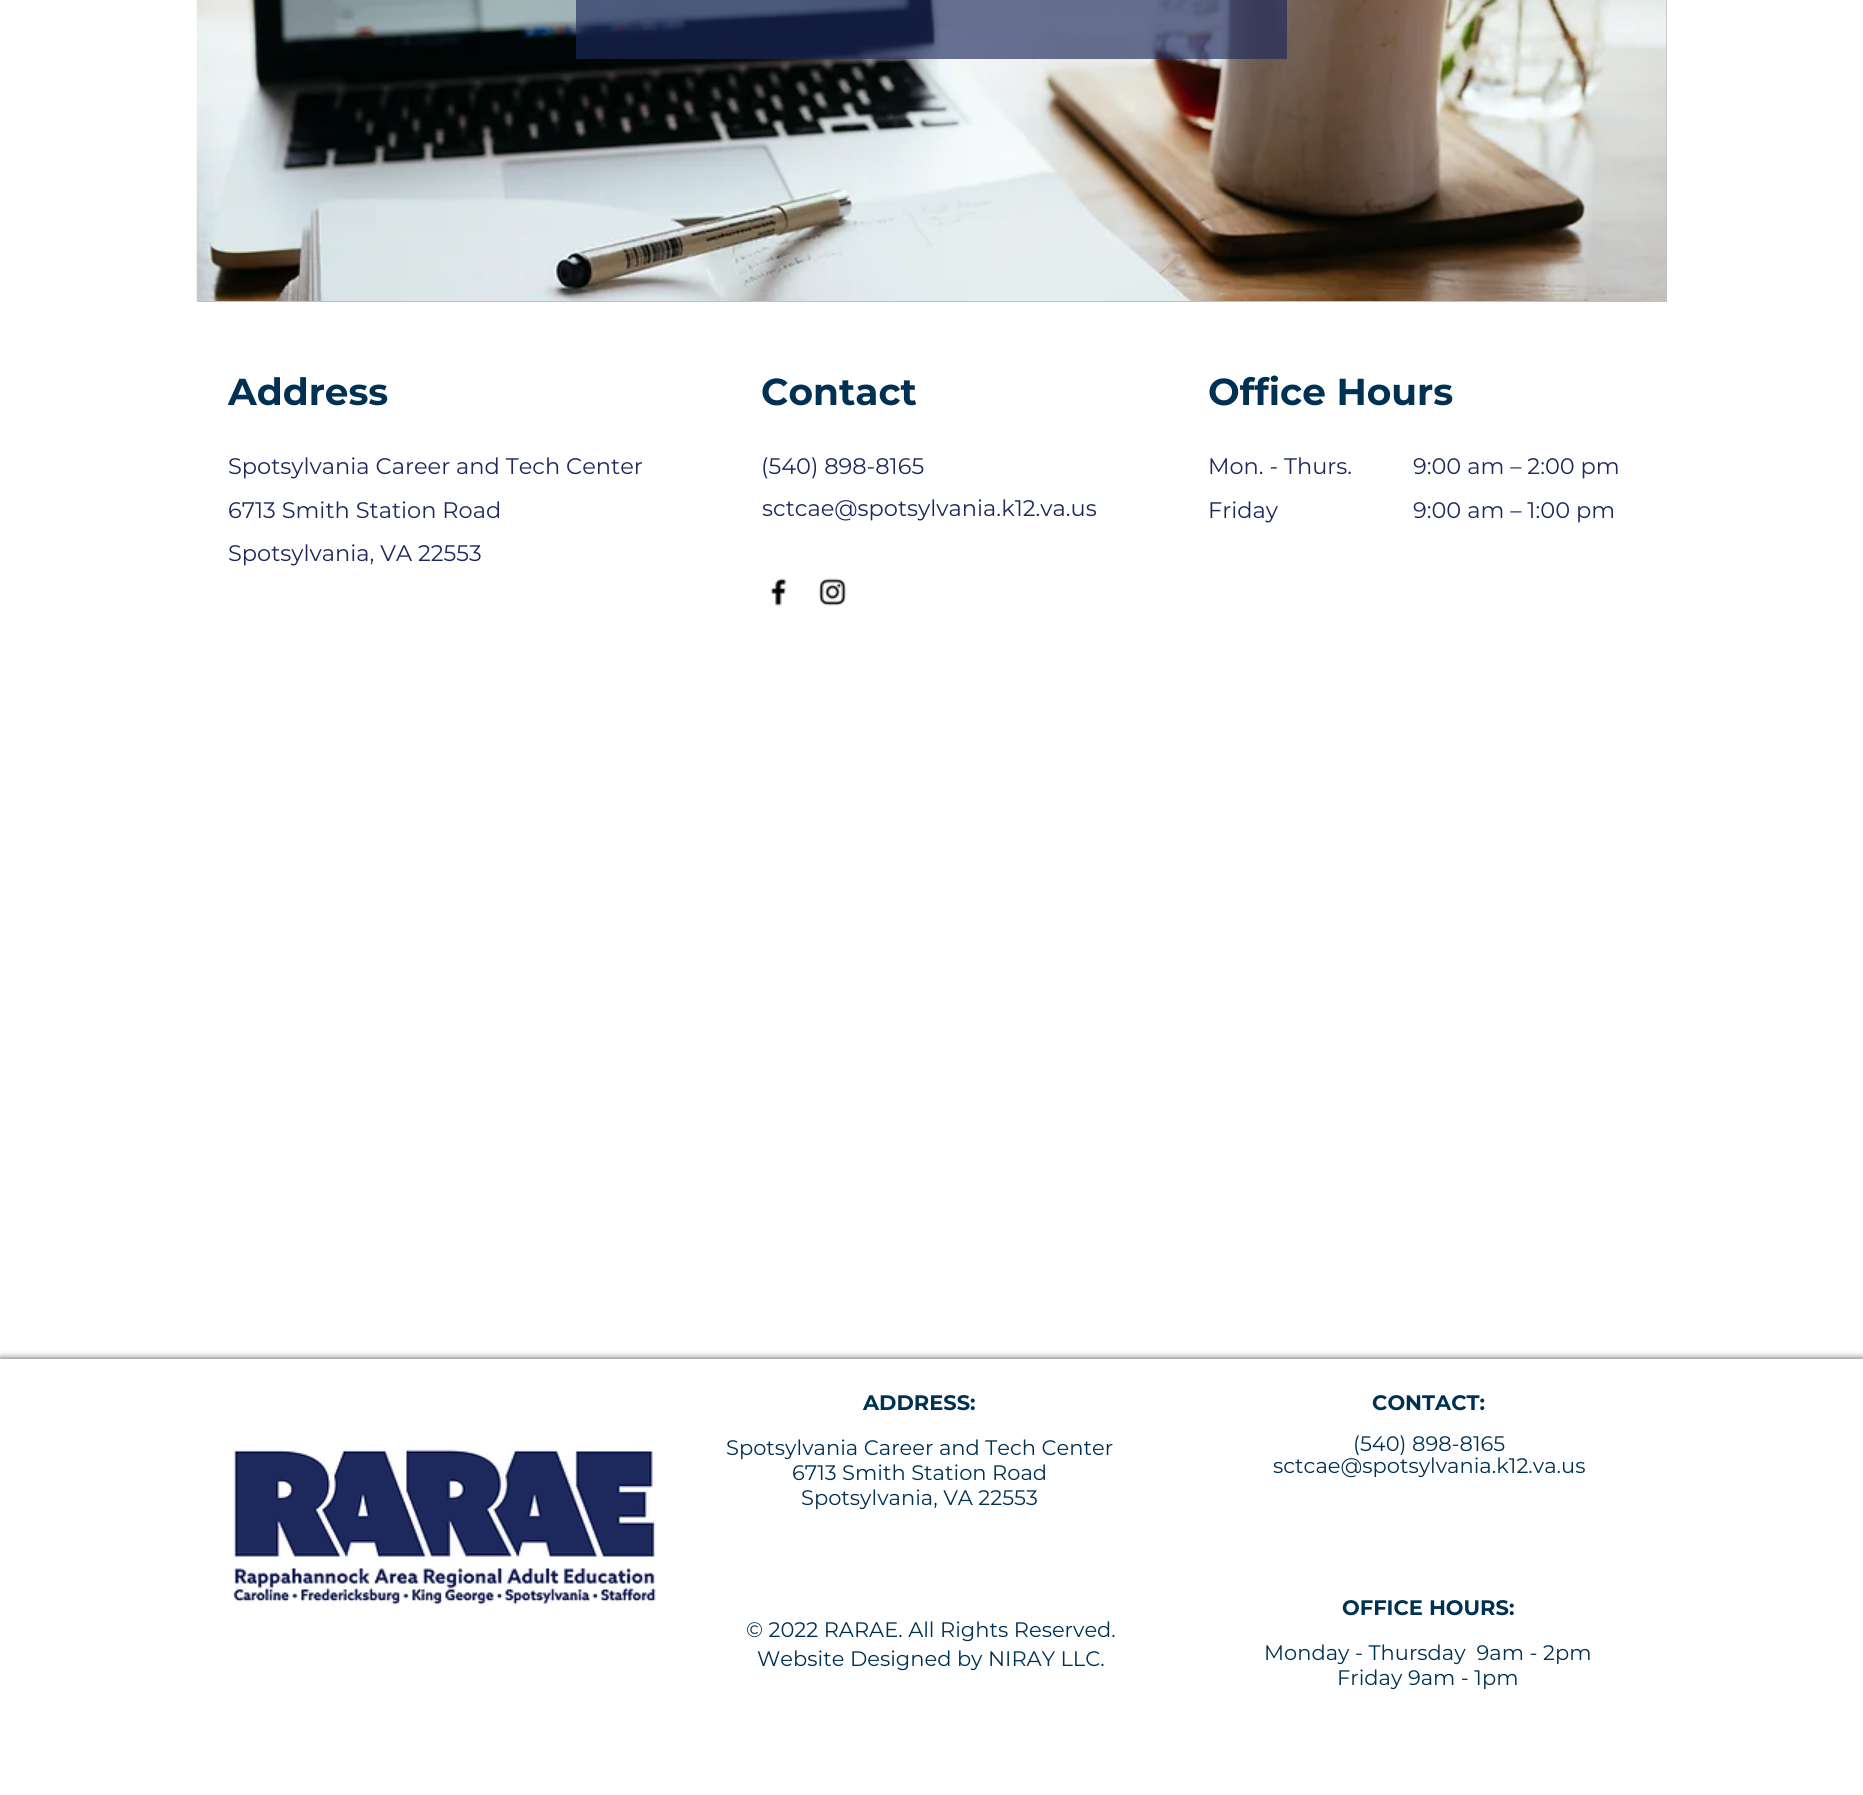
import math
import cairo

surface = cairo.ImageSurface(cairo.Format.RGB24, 1863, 1795)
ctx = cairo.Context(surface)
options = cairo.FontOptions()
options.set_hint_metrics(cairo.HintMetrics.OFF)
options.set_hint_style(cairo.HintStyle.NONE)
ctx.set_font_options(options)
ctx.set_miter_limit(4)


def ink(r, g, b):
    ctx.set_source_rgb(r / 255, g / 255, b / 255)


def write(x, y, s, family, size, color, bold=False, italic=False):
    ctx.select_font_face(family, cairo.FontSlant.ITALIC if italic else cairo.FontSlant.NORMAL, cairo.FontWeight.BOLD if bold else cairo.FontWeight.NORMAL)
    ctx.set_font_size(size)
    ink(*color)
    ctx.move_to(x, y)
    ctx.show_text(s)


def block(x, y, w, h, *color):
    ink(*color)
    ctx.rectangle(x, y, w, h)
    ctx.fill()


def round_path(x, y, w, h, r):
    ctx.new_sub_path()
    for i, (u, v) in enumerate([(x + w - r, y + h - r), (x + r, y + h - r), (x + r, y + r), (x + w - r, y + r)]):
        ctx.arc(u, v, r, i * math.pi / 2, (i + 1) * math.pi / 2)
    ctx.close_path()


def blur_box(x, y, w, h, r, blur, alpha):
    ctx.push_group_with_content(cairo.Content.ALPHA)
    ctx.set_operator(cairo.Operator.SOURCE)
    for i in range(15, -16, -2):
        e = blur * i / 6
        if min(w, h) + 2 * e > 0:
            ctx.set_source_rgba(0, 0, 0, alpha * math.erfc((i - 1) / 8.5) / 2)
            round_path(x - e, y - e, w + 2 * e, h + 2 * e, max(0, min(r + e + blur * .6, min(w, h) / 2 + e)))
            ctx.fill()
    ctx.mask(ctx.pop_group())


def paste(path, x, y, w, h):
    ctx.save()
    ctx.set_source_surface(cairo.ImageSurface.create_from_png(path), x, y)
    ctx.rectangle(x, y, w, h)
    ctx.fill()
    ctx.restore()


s1 = dict(family="Montserrat", size=37.5, color=(0, 49, 82), bold=True)
s2 = dict(family="Montserrat", size=22.5, color=(29, 40, 92))
s3 = dict(family="Montserrat", size=21, color=(0, 49, 82), bold=True)
s4 = dict(family="Montserrat", size=21, color=(0, 49, 82))

ink(255, 255, 255)
ctx.paint()
block(197, 0, 1470, 302, 192, 192, 192)
paste("pic1.png", 196, 0, 1471, 301)
ctx.set_source_rgba(0.114, 0.157, 0.361, 0.65)
ctx.rectangle(576, 0, 711, 59)
ctx.fill()
write(228, 405, "Address", **s1)
write(761, 405, "Contact", **s1)
write(1208, 405, "Office Hours", **s1)
write(228, 474, "Spotsylvania Career and Tech Center", **s2)
write(228, 518, "6713 Smith Station Road", **s2)
write(228, 561, "Spotsylvania, VA 22553", **s2)
write(761, 474, "(540) 898-8165", **s2)
write(1208, 474, "Mon. - Thurs.", **s2)
write(1413, 474, "9:00 am – 2:00 pm", **s2)
write(762, 516, "sctcae@spotsylvania.k12.va.us", **s2)
write(1208, 518, "Friday", **s2)
write(1413, 518, "9:00 am – 1:00 pm", **s2)
paste("pic2.png", 770, 578, 17, 28)
paste("pic3.png", 819, 578, 28, 28)
ctx.save()
ctx.rectangle(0, 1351, 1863, 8)
ctx.clip()
ink(0, 0, 0)
blur_box(0, 1359, 1863, 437, 0, 4, 0.7)
ctx.restore()
write(863, 1410, "ADDRESS:", **s3)
write(726, 1455, "Spotsylvania Career and Tech Center", **s4)
write(792, 1480, "6713 Smith Station Road", **s4)
write(801, 1505, "Spotsylvania, VA 22553", **s4)
write(1372, 1410, "CONTACT:", **s3)
write(1353, 1451, "(540) 898-8165", **s4)
write(1273, 1473, "sctcae@spotsylvania.k12.va.us", **s4)
paste("pic4.png", 233, 1449, 423, 156)
write(746, 1637, "© 2022 RARAE. All Rights Reserved.", **s4)
write(757, 1666, "Website Designed by NIRAY LLC.", **s4)
write(1342, 1615, "OFFICE HOURS:", **s3)
write(1264, 1660, "Monday - Thursday  9am - 2pm", **s4)
write(1337, 1685, "Friday 9am - 1pm", **s4)
surface.write_to_png("screenshot.png")
